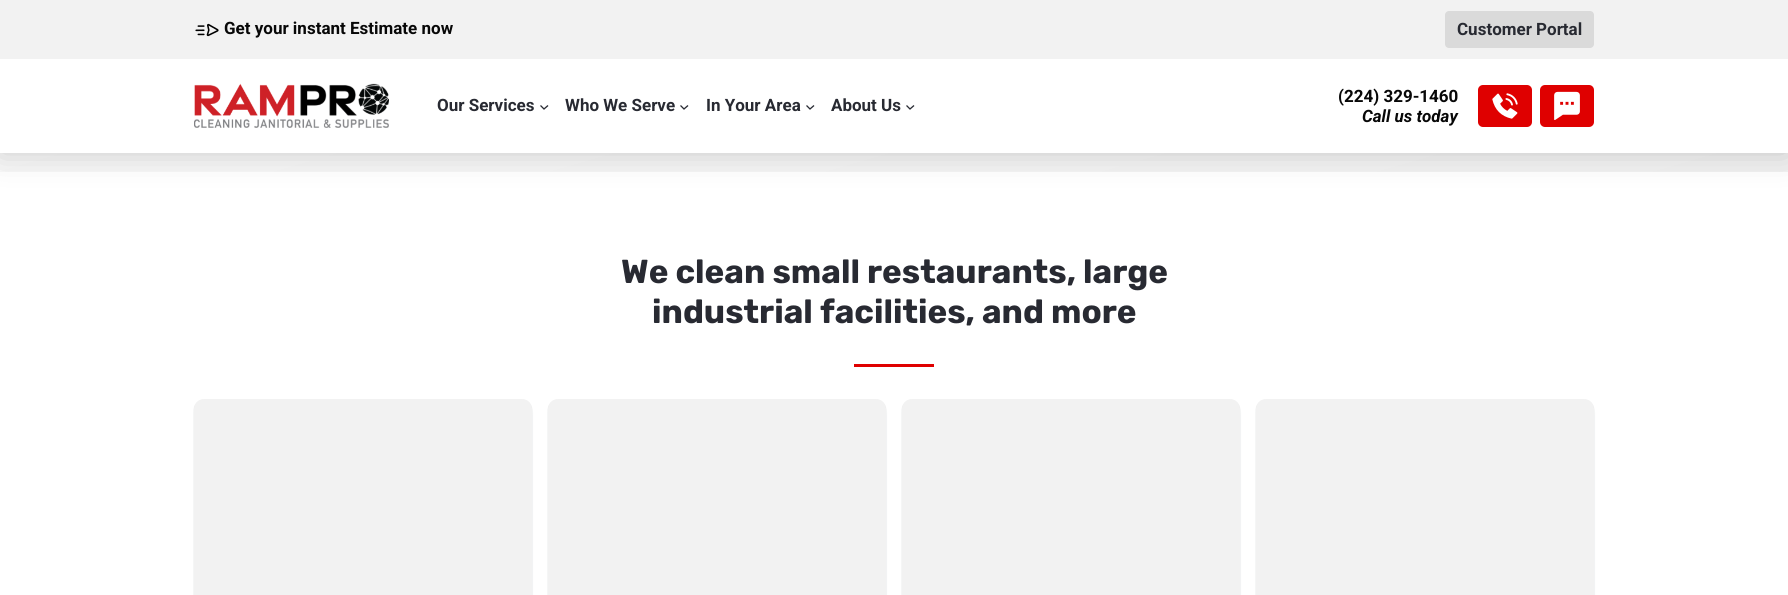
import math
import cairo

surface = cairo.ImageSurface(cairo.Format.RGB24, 1788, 595)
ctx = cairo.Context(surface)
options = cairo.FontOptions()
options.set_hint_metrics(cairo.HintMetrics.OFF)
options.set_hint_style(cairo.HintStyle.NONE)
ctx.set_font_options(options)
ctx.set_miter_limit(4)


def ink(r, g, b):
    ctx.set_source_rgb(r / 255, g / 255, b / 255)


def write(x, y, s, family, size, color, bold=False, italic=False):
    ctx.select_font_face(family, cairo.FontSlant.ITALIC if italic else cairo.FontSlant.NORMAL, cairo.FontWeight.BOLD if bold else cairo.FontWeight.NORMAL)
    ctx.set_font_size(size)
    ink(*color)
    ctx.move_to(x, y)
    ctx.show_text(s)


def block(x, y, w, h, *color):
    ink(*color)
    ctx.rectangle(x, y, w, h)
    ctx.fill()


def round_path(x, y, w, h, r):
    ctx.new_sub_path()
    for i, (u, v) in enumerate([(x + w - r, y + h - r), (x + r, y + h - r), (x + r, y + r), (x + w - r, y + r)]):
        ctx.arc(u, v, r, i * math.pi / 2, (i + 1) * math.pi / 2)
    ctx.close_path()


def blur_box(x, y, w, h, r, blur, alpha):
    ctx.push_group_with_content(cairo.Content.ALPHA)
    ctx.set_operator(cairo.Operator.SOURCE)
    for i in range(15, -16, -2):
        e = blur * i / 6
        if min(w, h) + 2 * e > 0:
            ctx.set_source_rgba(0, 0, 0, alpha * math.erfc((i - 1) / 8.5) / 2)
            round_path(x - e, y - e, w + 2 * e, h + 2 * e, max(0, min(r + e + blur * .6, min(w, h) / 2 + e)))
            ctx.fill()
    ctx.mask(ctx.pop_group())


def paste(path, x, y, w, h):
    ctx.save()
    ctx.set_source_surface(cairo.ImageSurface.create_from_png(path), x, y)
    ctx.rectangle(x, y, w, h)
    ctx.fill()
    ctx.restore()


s1 = dict(family="Roboto", size=17, color=(8, 8, 8), bold=True)
s2 = dict(family="Roboto", size=17, color=(40, 42, 50), bold=True)
s3 = dict(family="Roboto", size=17, color=(8, 8, 8), bold=True, italic=True)
s4 = dict(family="Rubik Light", size=33.25, color=(40, 42, 50))

ink(255, 255, 255)
ctx.paint()
gradient = cairo.LinearGradient(756, -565, 1032, 391)
gradient.add_color_stop_rgba(0, 1, 1, 1, 1)
gradient.add_color_stop_rgba(1, 0.949, 0.949, 0.949, 1)
ctx.set_source(gradient)
ctx.rectangle(0, 153, 1788, 19)
ctx.fill()
ink(0, 0, 0)
blur_box(0, 0, 1788, 153, 0, 16, 0.2)
block(0, 59, 1788, 94, 255, 255, 255)
block(0, 0, 1788, 59, 242, 242, 242)
paste("pic1.png", 195, 23, 24, 14)
write(224, 34, "Get your instant Estimate now", **s1)
ink(218, 218, 218)
round_path(1445, 11, 149, 37, 4)
ctx.fill()
write(1457, 35, "Customer Portal", **s2)
paste("pic2.png", 194, 83, 195, 45)
write(437, 111, "Our Services", **s2)
ctx.new_path()
ctx.move_to(540.5, 105.5)
ctx.line_to(544, 109)
ctx.line_to(548, 105.5)
ctx.set_line_width(1.3)
ctx.stroke()
write(565, 111, "Who We Serve", **s2)
ctx.new_path()
ctx.move_to(680.5, 105.5)
ctx.line_to(684, 109)
ctx.line_to(688, 105.5)
ctx.stroke()
write(706, 111, "In Your Area", **s2)
ctx.new_path()
ctx.move_to(806.5, 105.5)
ctx.line_to(810, 109)
ctx.line_to(814, 105.5)
ctx.stroke()
write(831, 111, "About Us", **s2)
ctx.new_path()
ctx.move_to(906.5, 105.5)
ctx.line_to(910, 109)
ctx.line_to(914, 105.5)
ctx.stroke()
write(1338, 102, "(224) 329-1460", **s1)
write(1362, 122, "Call us today", **s3)
ink(223, 0, 0)
round_path(1478, 85, 54, 42, 5)
ctx.fill()
paste("pic3.png", 1492, 93, 26, 26)
round_path(1540, 85, 54, 42, 5)
ctx.fill()
paste("pic4.png", 1554, 91, 26, 29)
write(621, 283, "We clean small restaurants, large", **s4)
write(652, 323, "industrial facilities, and more", **s4)
block(854, 364, 80, 3, 223, 0, 0)
ink(149, 153, 157)
blur_box(197, 406, 333, 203, 8, 2, 0.34)
blur_box(194, 400, 338, 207, 10, 0.5, 0.34)
ink(242, 242, 242)
round_path(194, 399, 338, 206, 10)
ctx.fill()
ink(149, 153, 157)
blur_box(551, 406, 333, 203, 8, 2, 0.34)
blur_box(548, 400, 338, 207, 10, 0.5, 0.34)
ink(242, 242, 242)
round_path(548, 399, 338, 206, 10)
ctx.fill()
ink(149, 153, 157)
blur_box(905, 406, 333, 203, 8, 2, 0.34)
blur_box(902, 400, 338, 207, 10, 0.5, 0.34)
ink(242, 242, 242)
round_path(902, 399, 338, 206, 10)
ctx.fill()
ink(149, 153, 157)
blur_box(1259, 406, 333, 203, 8, 2, 0.34)
blur_box(1256, 400, 338, 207, 10, 0.5, 0.34)
ink(242, 242, 242)
round_path(1256, 399, 338, 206, 10)
ctx.fill()
surface.write_to_png("screenshot.png")
